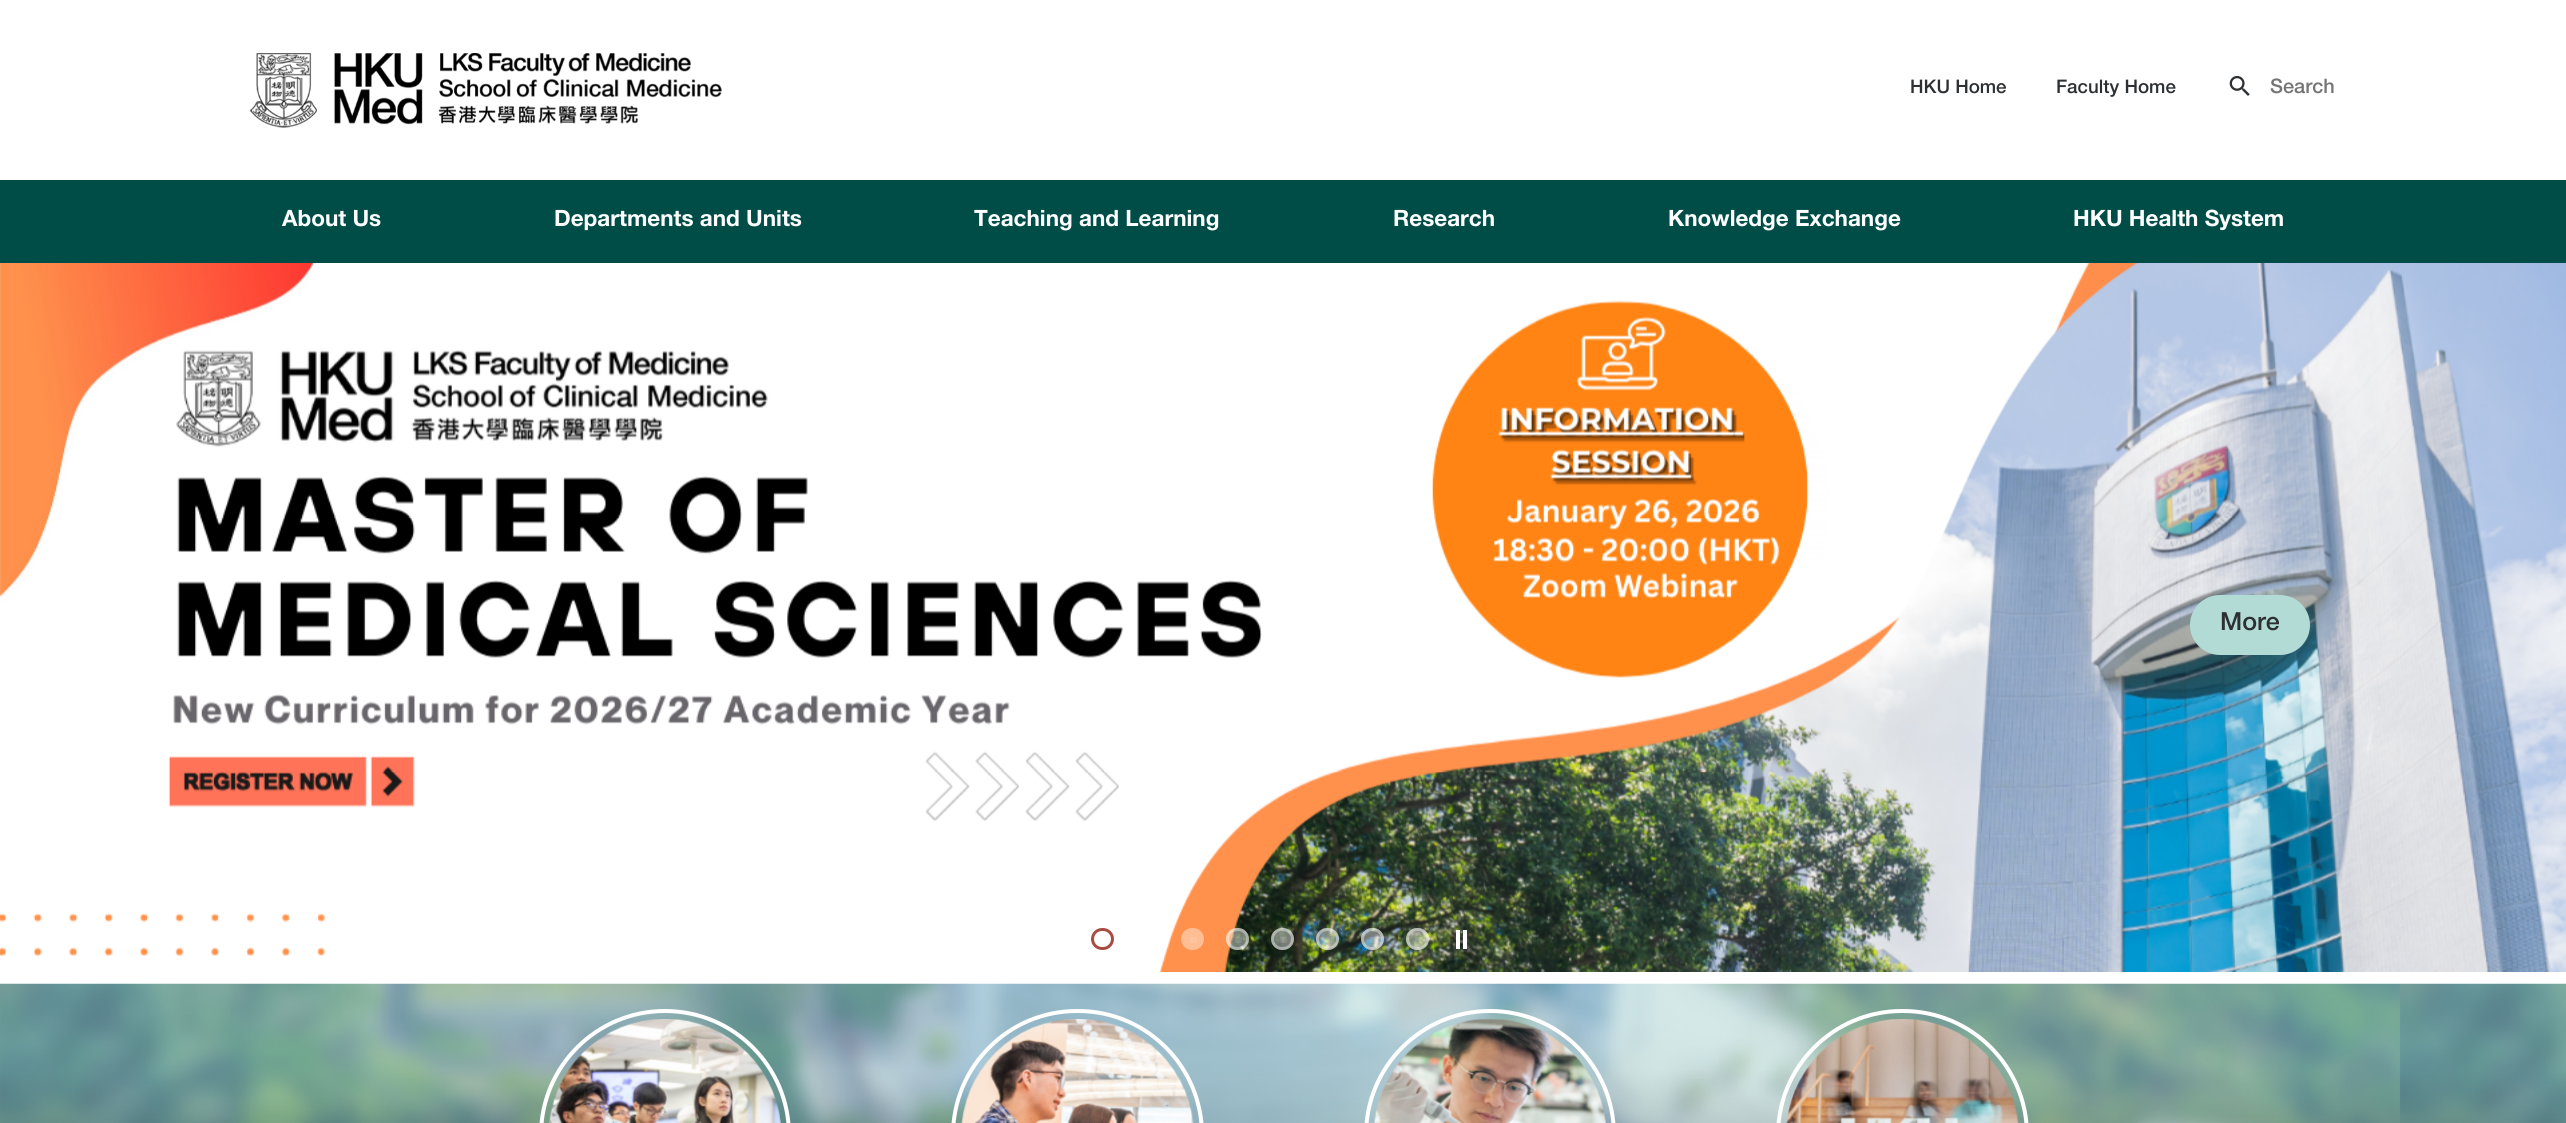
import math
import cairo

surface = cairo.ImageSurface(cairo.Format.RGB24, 2566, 1123)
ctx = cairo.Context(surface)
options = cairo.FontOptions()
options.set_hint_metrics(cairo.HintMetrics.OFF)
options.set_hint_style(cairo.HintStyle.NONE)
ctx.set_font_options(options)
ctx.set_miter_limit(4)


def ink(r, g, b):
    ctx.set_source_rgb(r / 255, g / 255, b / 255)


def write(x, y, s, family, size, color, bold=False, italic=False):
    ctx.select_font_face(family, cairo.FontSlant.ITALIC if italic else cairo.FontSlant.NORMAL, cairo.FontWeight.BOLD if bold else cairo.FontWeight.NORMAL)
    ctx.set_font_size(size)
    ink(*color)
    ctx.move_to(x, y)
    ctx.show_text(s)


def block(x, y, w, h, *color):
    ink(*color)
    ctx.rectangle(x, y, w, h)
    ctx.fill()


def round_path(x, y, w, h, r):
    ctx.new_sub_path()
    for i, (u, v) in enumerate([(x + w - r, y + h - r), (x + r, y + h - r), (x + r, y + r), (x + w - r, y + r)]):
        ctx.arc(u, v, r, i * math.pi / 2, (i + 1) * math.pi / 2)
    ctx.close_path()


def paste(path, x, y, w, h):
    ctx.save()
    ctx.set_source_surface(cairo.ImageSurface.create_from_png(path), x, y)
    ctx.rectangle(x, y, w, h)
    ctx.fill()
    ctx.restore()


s1 = dict(family="Helvetica Neue Medium", size=18.75, color=(45, 48, 51))
s2 = dict(family="Helvetica Neue Medium", size=20, color=(117, 117, 117))
s3 = dict(family="Helvetica Neue", size=22.5, color=(255, 255, 255), bold=True)
s4 = dict(family="Helvetica Neue Medium", size=25, color=(45, 48, 51))

ink(255, 255, 255)
ctx.paint()
paste("pic1.png", 250, 53, 472, 75)
write(1910, 93, "HKU Home", **s1)
write(2056, 93, "Faculty Home", **s1)
paste("pic2.png", 2229, 75, 21, 21)
write(2270, 93, "Search", **s2)
block(0, 180, 2566, 83, 0, 77, 71)
write(282, 226, "About Us", **s3)
write(554, 226, "Departments and Units", **s3)
write(974, 226, "Teaching and Learning", **s3)
write(1393, 226, "Research", **s3)
write(1668, 226, "Knowledge Exchange", **s3)
write(2073, 226, "HKU Health System", **s3)
paste("pic3.png", 0, 263, 2566, 709)
ink(178, 219, 213)
round_path(2190, 595, 120, 60, 30)
ctx.fill()
write(2220, 630, "More", **s4)
round_path(1092.5, 929.5, 20, 19, 9.5)
ink(170, 75, 65)
ctx.set_line_width(3)
ctx.stroke()
ink(255, 189, 148)
round_path(1182.5, 929.5, 20, 19, 9.5)
ctx.fill_preserve()
ctx.stroke()
block(1190, 937, 7, 6, 255, 196, 159)
ctx.set_source_rgba(1, 1, 1, 0.4)
round_path(1226, 928, 23, 22, 11)
ctx.fill()
round_path(1227.5, 929.5, 20, 19, 9.5)
ctx.stroke()
ctx.set_source_rgba(1, 1, 1, 0.1)
ctx.rectangle(1235, 937, 7, 6)
ctx.fill()
ctx.set_source_rgba(1, 1, 1, 0.4)
round_path(1271, 928, 23, 22, 11)
ctx.fill()
round_path(1272.5, 929.5, 20, 19, 9.5)
ctx.stroke()
ctx.set_source_rgba(1, 1, 1, 0.1)
ctx.rectangle(1280, 937, 7, 6)
ctx.fill()
ctx.set_source_rgba(1, 1, 1, 0.4)
round_path(1316, 928, 23, 22, 11)
ctx.fill()
round_path(1317.5, 929.5, 20, 19, 9.5)
ctx.stroke()
ctx.set_source_rgba(1, 1, 1, 0.1)
ctx.rectangle(1325, 937, 7, 6)
ctx.fill()
ctx.set_source_rgba(1, 1, 1, 0.4)
round_path(1361, 928, 23, 22, 11)
ctx.fill()
round_path(1362.5, 929.5, 20, 19, 9.5)
ctx.stroke()
ctx.set_source_rgba(1, 1, 1, 0.1)
ctx.rectangle(1370, 937, 6, 6)
ctx.fill()
ctx.set_source_rgba(1, 1, 1, 0.4)
round_path(1406, 928, 23, 22, 11)
ctx.fill()
round_path(1407.5, 929.5, 20, 19, 9.5)
ctx.stroke()
ctx.set_source_rgba(1, 1, 1, 0.1)
ctx.rectangle(1415, 937, 7, 6)
ctx.fill()
block(1456, 930, 4, 19, 255, 255, 255)
block(1463, 930, 4, 19, 255, 255, 255)
paste("pic4.png", 0, 983, 2566, 140)
round_path(541, 1011, 248, 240, 124)
ctx.set_line_width(4)
ctx.stroke()
paste("pic5.png", 549, 1019, 232, 104)
round_path(953, 1011, 249, 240, 124)
ctx.stroke()
paste("pic6.png", 961, 1019, 233, 104)
round_path(1366, 1011, 248, 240, 124)
ctx.stroke()
paste("pic7.png", 1374, 1019, 232, 104)
round_path(1778, 1011, 249, 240, 124)
ctx.stroke()
paste("pic8.png", 1786, 1019, 233, 104)
surface.write_to_png("screenshot.png")
